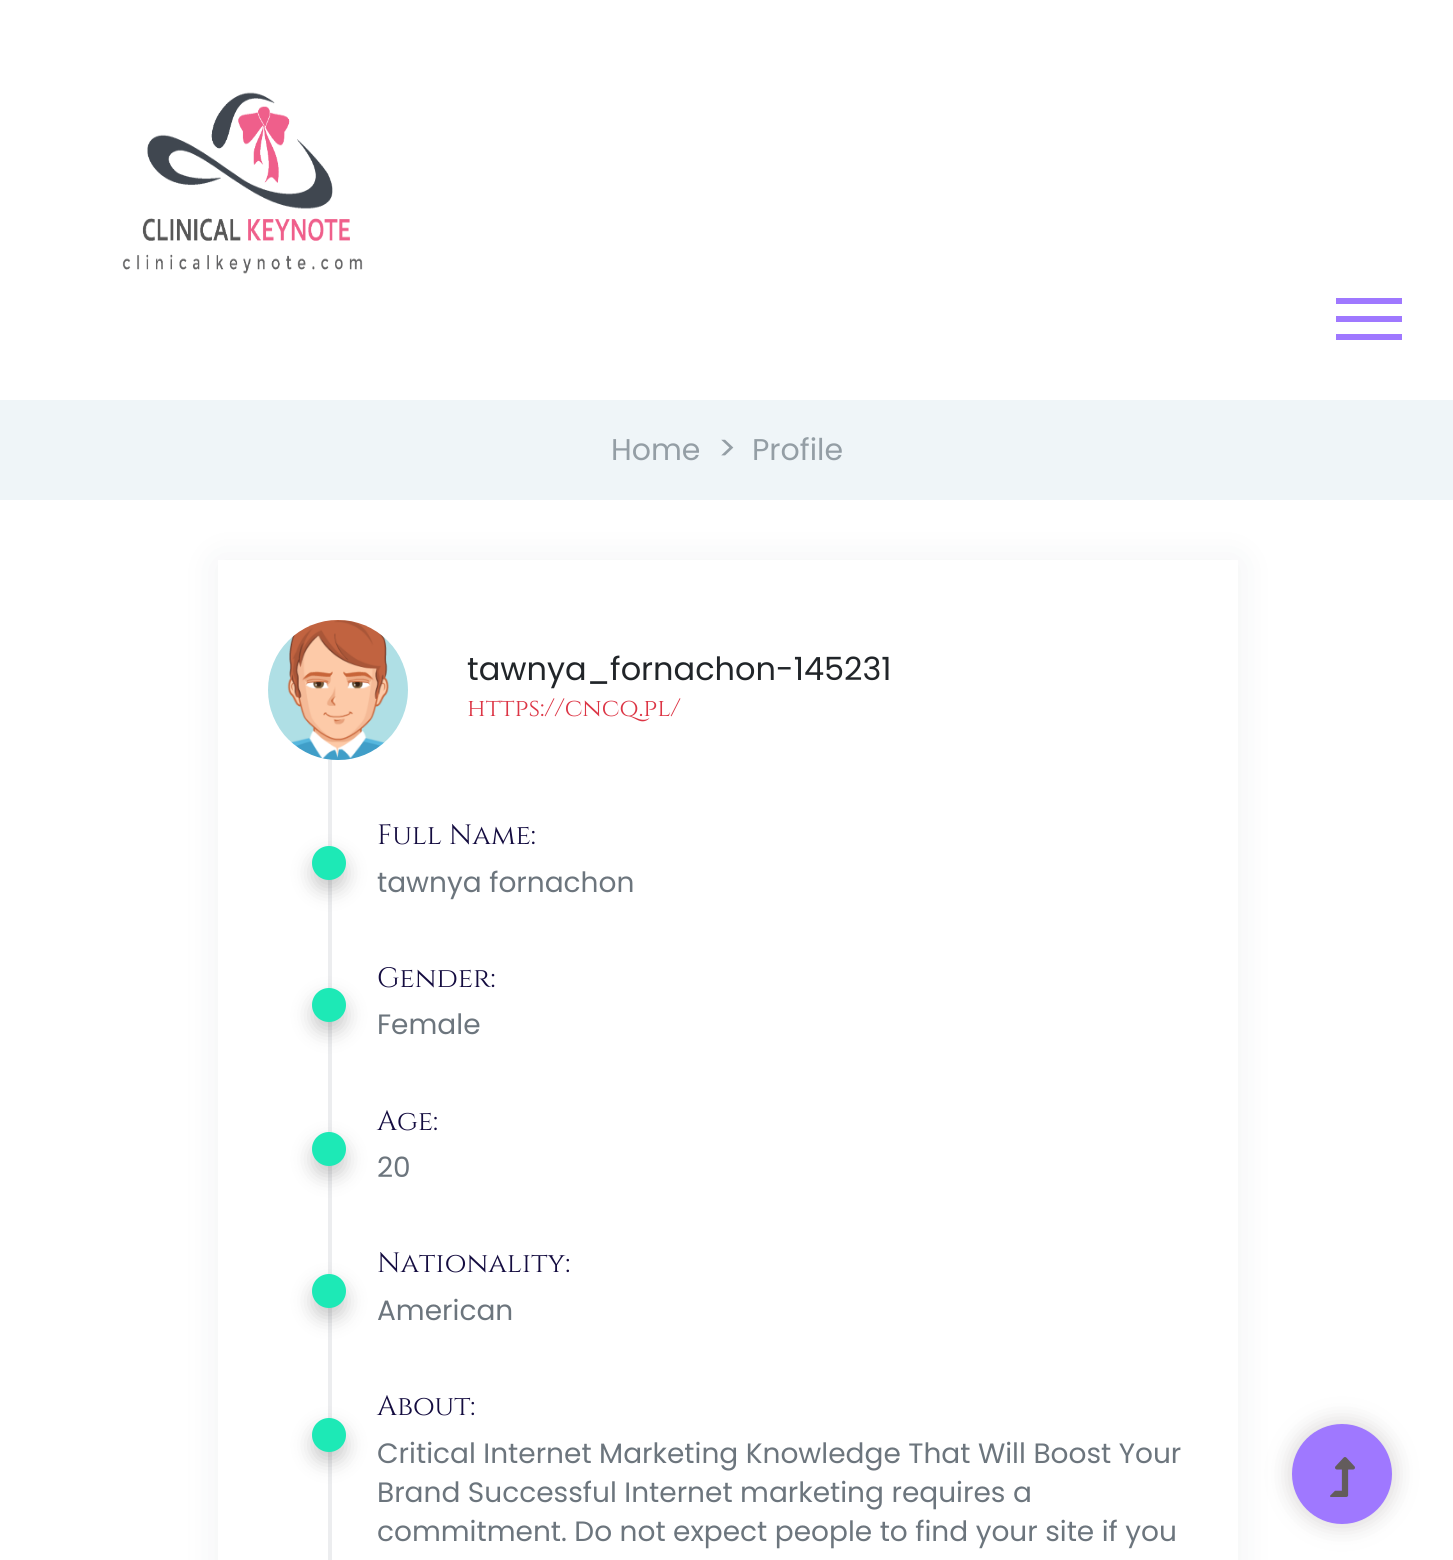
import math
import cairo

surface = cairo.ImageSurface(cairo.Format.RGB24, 1453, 1560)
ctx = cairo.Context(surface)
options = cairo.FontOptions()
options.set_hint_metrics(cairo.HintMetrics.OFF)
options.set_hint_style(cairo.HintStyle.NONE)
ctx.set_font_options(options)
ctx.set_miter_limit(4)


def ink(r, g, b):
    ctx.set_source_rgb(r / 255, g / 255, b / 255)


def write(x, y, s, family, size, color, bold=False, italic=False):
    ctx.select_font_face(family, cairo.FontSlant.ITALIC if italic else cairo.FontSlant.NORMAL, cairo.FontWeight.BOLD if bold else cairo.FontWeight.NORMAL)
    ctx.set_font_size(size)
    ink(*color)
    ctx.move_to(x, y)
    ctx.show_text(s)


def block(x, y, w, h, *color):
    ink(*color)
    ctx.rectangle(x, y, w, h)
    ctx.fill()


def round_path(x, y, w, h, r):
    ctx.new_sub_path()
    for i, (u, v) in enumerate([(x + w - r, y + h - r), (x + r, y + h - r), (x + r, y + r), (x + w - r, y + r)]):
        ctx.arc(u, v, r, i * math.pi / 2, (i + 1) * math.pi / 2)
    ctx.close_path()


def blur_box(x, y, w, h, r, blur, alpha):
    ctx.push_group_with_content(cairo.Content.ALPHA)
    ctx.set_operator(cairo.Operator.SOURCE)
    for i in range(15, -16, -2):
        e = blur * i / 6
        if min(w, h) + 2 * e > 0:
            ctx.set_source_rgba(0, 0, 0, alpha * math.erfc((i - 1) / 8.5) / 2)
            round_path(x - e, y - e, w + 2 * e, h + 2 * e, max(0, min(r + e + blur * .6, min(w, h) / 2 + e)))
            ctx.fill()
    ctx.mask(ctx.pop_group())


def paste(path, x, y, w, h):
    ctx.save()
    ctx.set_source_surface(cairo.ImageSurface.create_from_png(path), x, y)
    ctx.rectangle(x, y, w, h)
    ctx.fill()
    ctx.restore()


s1 = dict(family="Poppins", size=30, color=(148, 158, 165))
s2 = dict(family="Poppins", size=34, color=(148, 158, 165))
s3 = dict(family="Poppins", size=32, color=(33, 37, 41))
s4 = dict(family="Cinzel", size=25, color=(220, 53, 69))
s5 = dict(family="Cinzel", size=28, color=(20, 12, 64))
s6 = dict(family="Poppins", size=28, color=(108, 117, 125))

ink(255, 255, 255)
ctx.paint()
paste("pic1.png", 122, 92, 241, 182)
block(1336, 298, 66, 6, 159, 120, 255)
block(1336, 316, 66, 6, 159, 120, 255)
block(1336, 334, 66, 6, 159, 120, 255)
block(0, 400, 1453, 100, 239, 245, 248)
write(611, 460, "Home", **s1)
write(718, 460, ">", **s2)
write(752, 460, "Profile", **s1)
ink(69, 90, 100)
blur_box(218, 562, 1020, 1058, 0, 20, 0.08)
block(218, 560, 1020, 1000, 255, 255, 255)
paste("pic2.png", 268, 620, 140, 140)
write(467, 680, "tawnya_fornachon-145231", **s3)
write(467, 716, "https://cncq.pl/", **s4)
block(328, 760, 4, 800, 236, 237, 239)
ink(0, 0, 0)
blur_box(312, 856, 34, 34, 17, 10, 0.2)
ink(29, 233, 182)
ctx.arc(329, 863, 17, 0, 2 * math.pi)
ctx.fill()
write(377, 844, "Full Name:", **s5)
write(377, 892, "tawnya fornachon", **s6)
ink(0, 0, 0)
blur_box(312, 998, 34, 34, 17, 10, 0.2)
ink(29, 233, 182)
ctx.arc(329, 1005, 17, 0, 2 * math.pi)
ctx.fill()
write(377, 987, "Gender:", **s5)
write(377, 1034, "Female", **s6)
ink(0, 0, 0)
blur_box(312, 1142, 34, 34, 17, 10, 0.2)
ink(29, 233, 182)
ctx.arc(329, 1149, 17, 0, 2 * math.pi)
ctx.fill()
write(377, 1130, "Age:", **s5)
write(377, 1177, "20", **s6)
ink(0, 0, 0)
blur_box(312, 1284, 34, 34, 17, 10, 0.2)
ink(29, 233, 182)
ctx.arc(329, 1291, 17, 0, 2 * math.pi)
ctx.fill()
write(377, 1272, "Nationality:", **s5)
write(377, 1320, "American", **s6)
ink(0, 0, 0)
blur_box(312, 1428, 34, 34, 17, 10, 0.2)
ink(29, 233, 182)
ctx.arc(329, 1435, 17, 0, 2 * math.pi)
ctx.fill()
write(377, 1415, "About:", **s5)
write(377, 1463, "Critical Internet Marketing Knowledge That Will Boost Your", **s6)
write(377, 1502, "Brand Successful Internet marketing requires a", **s6)
write(377, 1541, "commitment. Do not expect people to find your site if you", **s6)
ink(108, 98, 98)
blur_box(1286, 1418, 112, 112, 56, 10, 0.2)
ink(159, 120, 255)
ctx.arc(1342, 1474, 50, 0, 2 * math.pi)
ctx.fill()
paste("pic3.png", 1330, 1457, 25, 40)
surface.write_to_png("screenshot.png")
